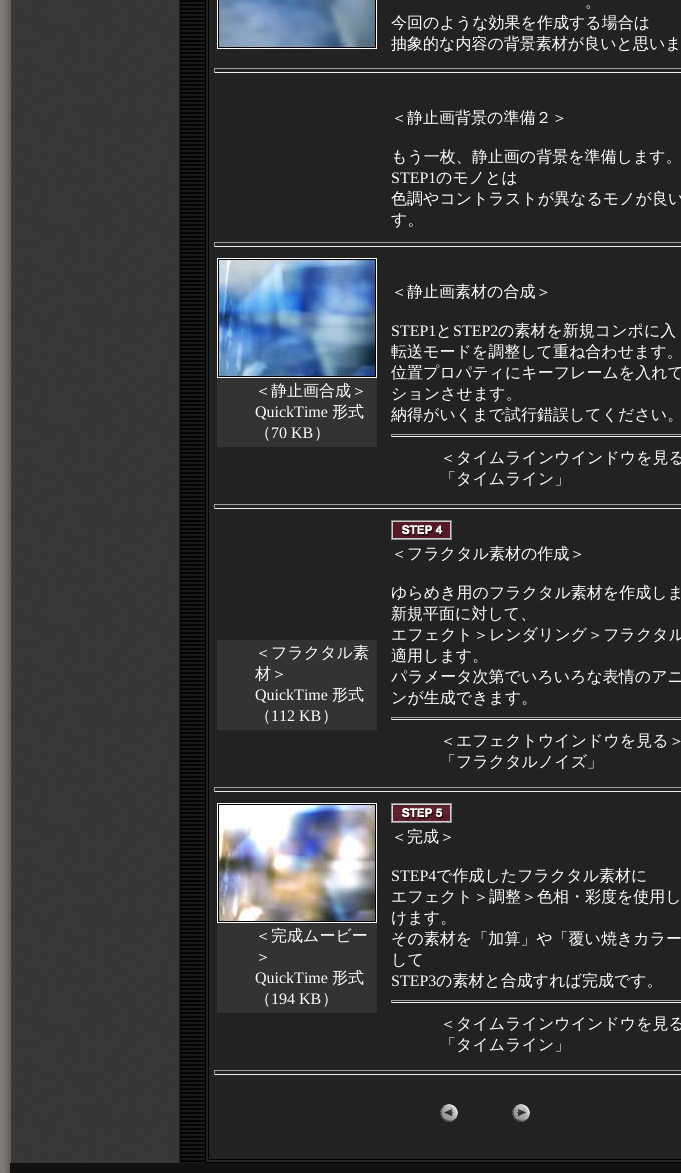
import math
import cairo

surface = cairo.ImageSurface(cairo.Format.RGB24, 681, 1173)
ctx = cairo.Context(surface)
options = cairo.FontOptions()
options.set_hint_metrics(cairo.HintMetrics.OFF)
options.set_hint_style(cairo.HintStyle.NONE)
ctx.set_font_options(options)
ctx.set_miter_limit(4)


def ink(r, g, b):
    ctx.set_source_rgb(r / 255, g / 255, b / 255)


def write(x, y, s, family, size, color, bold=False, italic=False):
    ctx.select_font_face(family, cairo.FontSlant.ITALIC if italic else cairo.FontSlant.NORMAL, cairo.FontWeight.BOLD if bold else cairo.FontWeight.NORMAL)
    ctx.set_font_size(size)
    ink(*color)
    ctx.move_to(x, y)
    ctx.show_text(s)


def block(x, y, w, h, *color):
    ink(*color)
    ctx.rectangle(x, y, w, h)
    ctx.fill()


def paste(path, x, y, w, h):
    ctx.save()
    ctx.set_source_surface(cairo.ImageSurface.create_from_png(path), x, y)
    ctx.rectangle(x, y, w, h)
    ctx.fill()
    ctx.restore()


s1 = dict(family="WenQuanYi Zen Hei Medium", size=16, color=(255, 255, 255))
s2 = dict(family="Liberation Serif", size=16, color=(255, 255, 255))

ink(127, 123, 120)
ctx.paint()
paste("pic1.png", 0, 0, 10, 1163)
paste("pic2.png", 10, 0, 170, 1163)
paste("pic3.png", 180, 0, 25, 1163)
ink(34, 34, 34)
ctx.rectangle(205.5, -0.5, 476, 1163)
ctx.fill_preserve()
ink(0, 0, 0)
ctx.set_line_width(1)
ctx.stroke()
ctx.rectangle(208.5, -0.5, 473, 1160)
ctx.stroke()
paste("pic4.png", 217, 0, 160, 49)
write(585, 7, "。", **s1)
write(391, 28, "今回のような効果を作成する場合は", **s1)
write(391, 49, "抽象的な内容の背景素材が良いと思いま", **s1)
block(214, 68, 467, 1, 159, 159, 159)
block(214, 72, 467, 1, 238, 238, 238)
block(214, 68, 1, 5, 159, 159, 159)
write(391, 123, "＜静止画背景の準備２＞", **s1)
write(391, 162, "もう一枚、静止画の背景を準備します。", **s1)
write(391, 183, "STEP1", **s2)
write(436, 183, "のモノとは", **s1)
write(391, 204, "色調やコントラストが異なるモノが良い", **s1)
write(391, 225, "す。", **s1)
block(214, 242, 467, 1, 159, 159, 159)
block(214, 246, 467, 1, 238, 238, 238)
block(214, 242, 1, 5, 159, 159, 159)
paste("pic5.png", 217, 258, 160, 120)
block(217, 378, 160, 69, 51, 51, 51)
write(255, 396, "＜静止画合成＞", **s1)
write(255, 417, "QuickTime", **s2)
write(332, 417, "形式", **s1)
write(255, 438, "（", **s1)
write(271, 438, "70 KB", **s2)
write(314, 438, "）", **s1)
write(391, 297, "＜静止画素材の合成＞", **s1)
write(391, 336, "STEP1", **s2)
write(436, 336, "と", **s1)
write(453, 336, "STEP2", **s2)
write(498, 336, "の素材を新規コンポに入", **s1)
write(391, 357, "転送モードを調整して重ね合わせます。", **s1)
write(391, 378, "位置プロパティにキーフレームを入れて", **s1)
write(391, 399, "ションさせます。", **s1)
write(391, 420, "納得がいくまで試行錯誤してください。", **s1)
block(391, 434, 290, 1, 159, 159, 159)
block(391, 436, 290, 1, 238, 238, 238)
block(391, 434, 1, 3, 159, 159, 159)
write(440, 463, "＜タイムラインウインドウを見る", **s1)
write(440, 484, "「タイムライン」", **s1)
block(214, 504, 467, 1, 159, 159, 159)
block(214, 508, 467, 1, 238, 238, 238)
block(214, 504, 1, 5, 159, 159, 159)
block(217, 640, 160, 90, 51, 51, 51)
write(255, 658, "＜フラクタル素", **s1)
write(255, 679, "材＞", **s1)
write(255, 700, "QuickTime", **s2)
write(332, 700, "形式", **s1)
write(255, 721, "（", **s1)
write(271, 721, "112 KB", **s2)
write(322, 721, "）", **s1)
paste("pic6.png", 391, 520, 61, 20)
write(391, 559, "＜フラクタル素材の作成＞", **s1)
write(391, 598, "ゆらめき用のフラクタル素材を作成しま", **s1)
write(391, 619, "新規平面に対して、", **s1)
write(391, 640, "エフェクト＞レンダリング＞フラクタル", **s1)
write(391, 661, "適用します。", **s1)
write(391, 682, "パラメータ次第でいろいろな表情のアニ", **s1)
write(391, 703, "ンが生成できます。", **s1)
block(391, 717, 290, 1, 159, 159, 159)
block(391, 719, 290, 1, 238, 238, 238)
block(391, 717, 1, 3, 159, 159, 159)
write(440, 746, "＜エフェクトウインドウを見る＞", **s1)
write(440, 767, "「フラクタルノイズ」", **s1)
block(214, 787, 467, 1, 159, 159, 159)
block(214, 791, 467, 1, 238, 238, 238)
block(214, 787, 1, 5, 159, 159, 159)
paste("pic7.png", 217, 803, 160, 120)
block(217, 923, 160, 90, 51, 51, 51)
write(255, 941, "＜完成ムービー", **s1)
write(255, 962, "＞", **s1)
write(255, 983, "QuickTime", **s2)
write(332, 983, "形式", **s1)
write(255, 1004, "（", **s1)
write(271, 1004, "194 KB", **s2)
write(322, 1004, "）", **s1)
paste("pic8.png", 391, 803, 61, 20)
write(391, 842, "＜完成＞", **s1)
write(391, 881, "STEP4", **s2)
write(436, 881, "で作成したフラクタル素材に", **s1)
write(391, 902, "エフェクト＞調整＞色相・彩度を使用し", **s1)
write(391, 923, "けます。", **s1)
write(391, 944, "その素材を「加算」や「覆い焼きカラー", **s1)
write(391, 965, "して", **s1)
write(391, 986, "STEP3", **s2)
write(436, 986, "の素材と合成すれば完成です。", **s1)
block(391, 1000, 290, 1, 159, 159, 159)
block(391, 1002, 290, 1, 238, 238, 238)
block(391, 1000, 1, 3, 159, 159, 159)
write(440, 1029, "＜タイムラインウインドウを見る", **s1)
write(440, 1050, "「タイムライン」", **s1)
block(214, 1070, 467, 1, 159, 159, 159)
block(214, 1074, 467, 1, 238, 238, 238)
block(214, 1070, 1, 5, 159, 159, 159)
paste("pic9.png", 440, 1104, 18, 18)
paste("pic10.png", 512, 1104, 18, 18)
paste("pic11.png", 4, 1163, 6, 10)
block(10, 1163, 671, 10, 17, 17, 17)
surface.write_to_png("screenshot.png")
